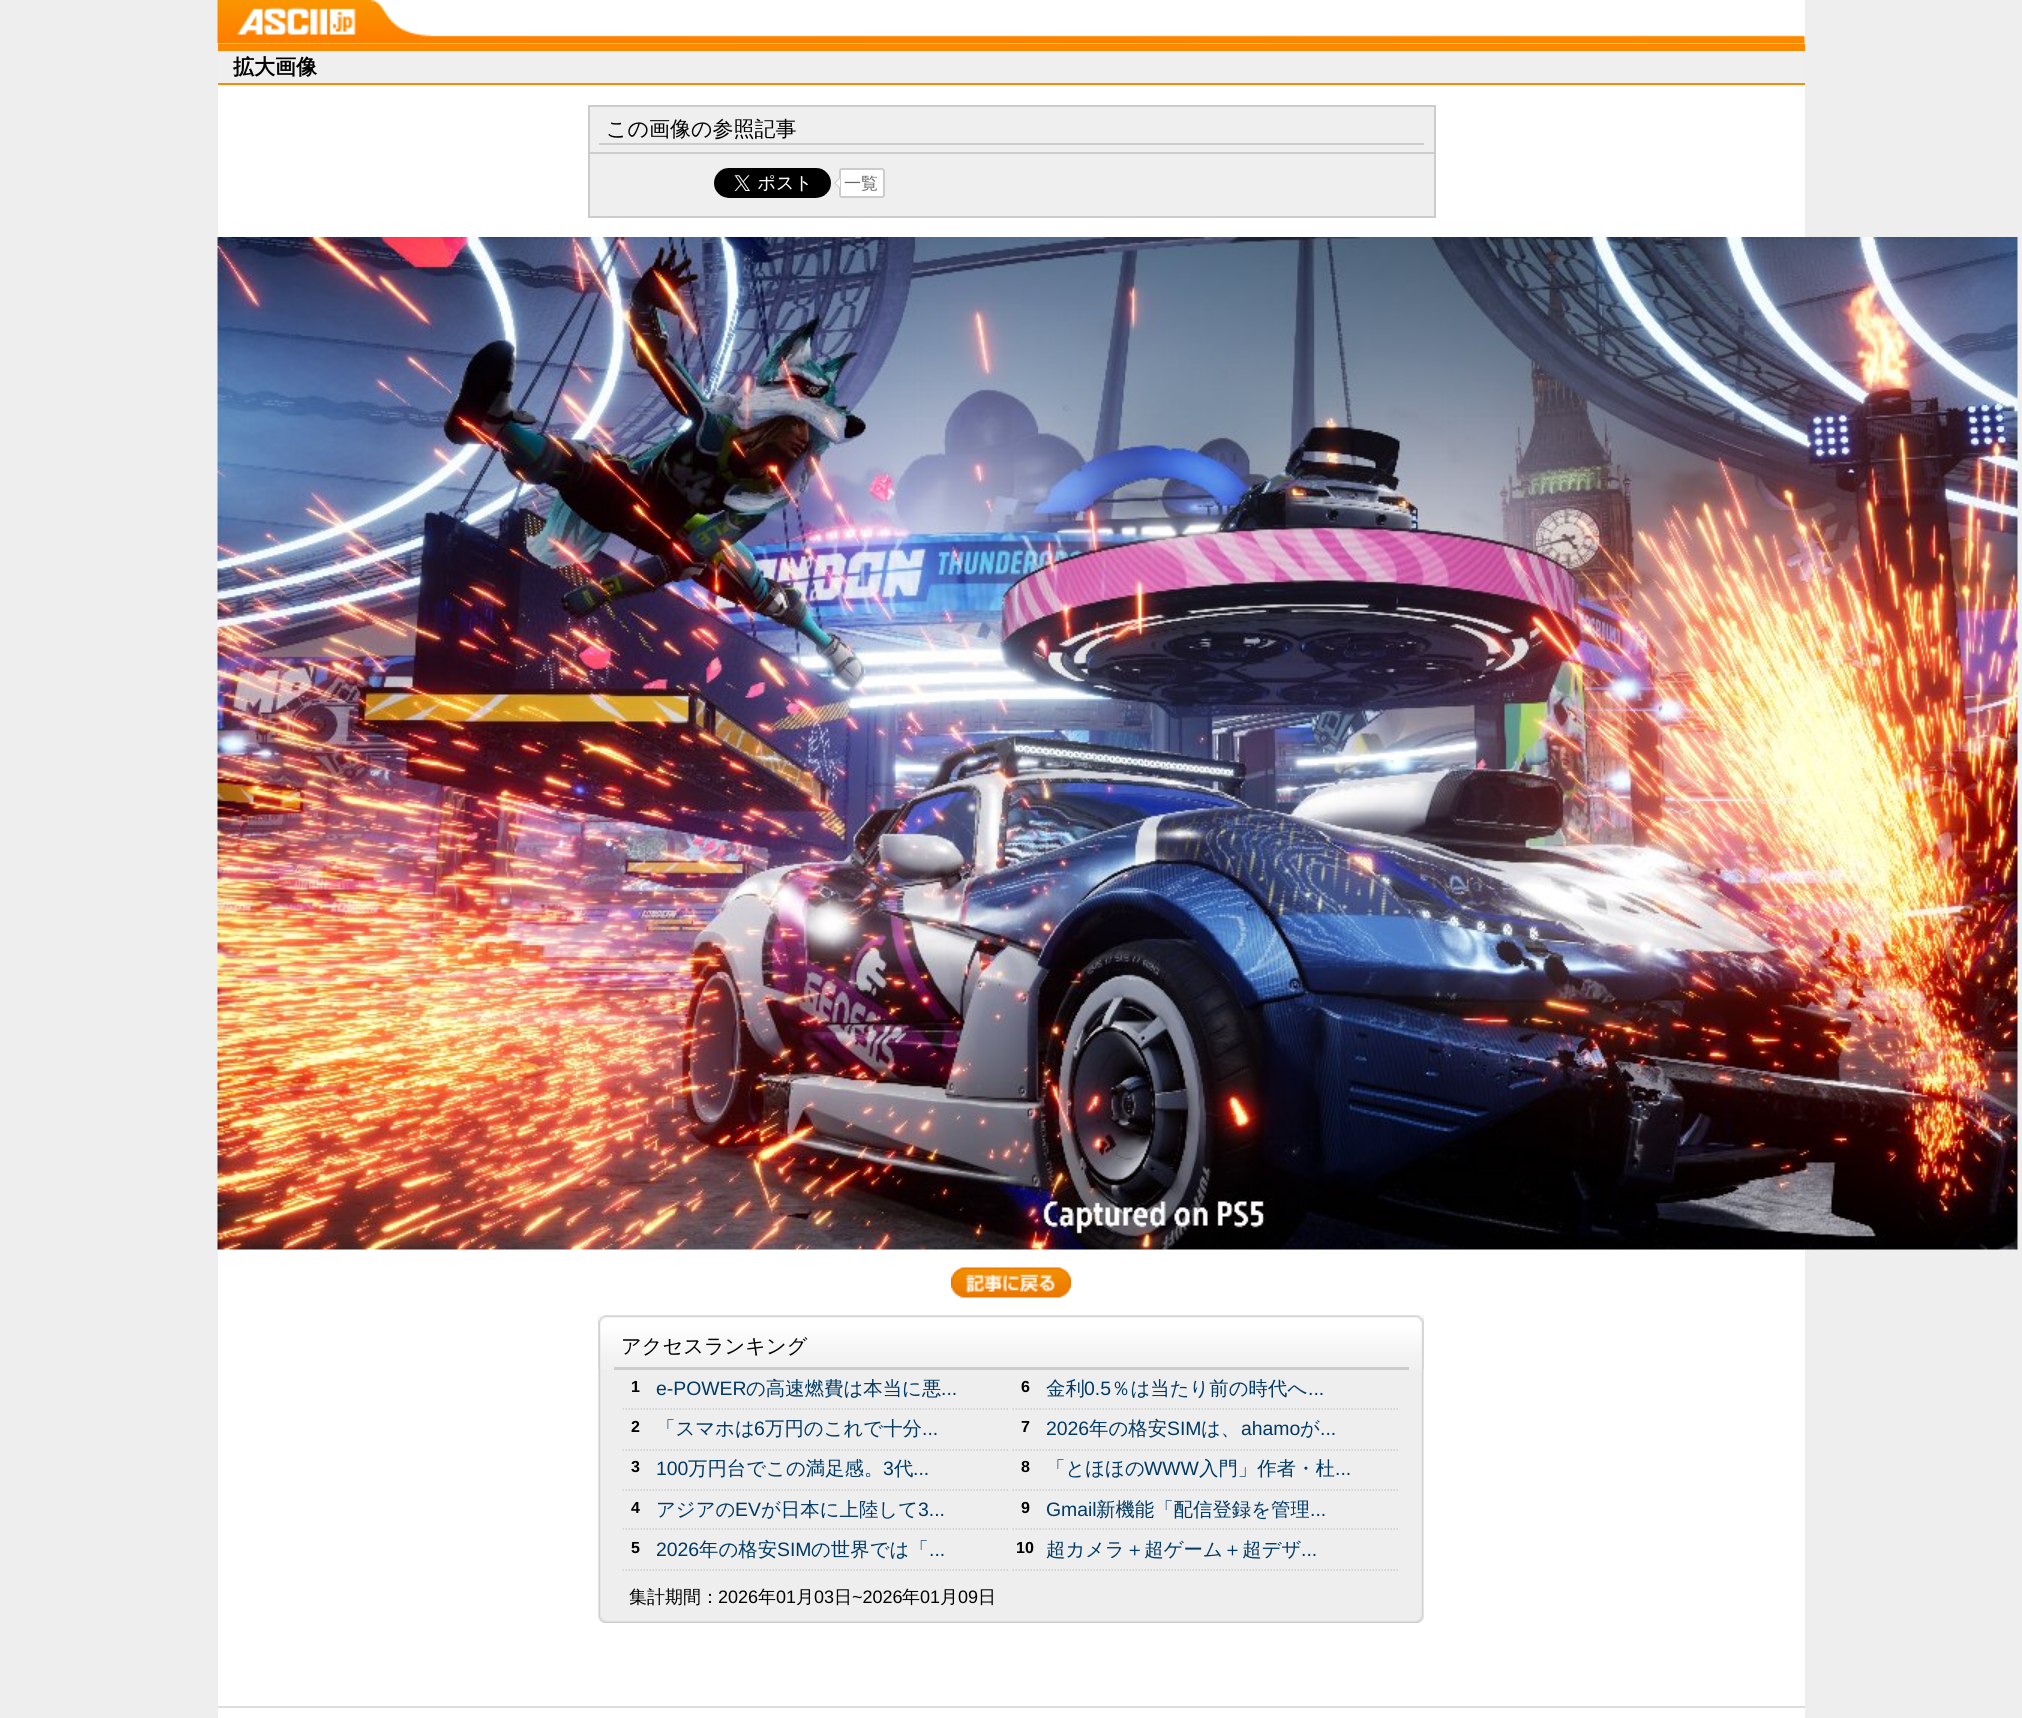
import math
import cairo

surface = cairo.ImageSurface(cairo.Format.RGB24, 2022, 1718)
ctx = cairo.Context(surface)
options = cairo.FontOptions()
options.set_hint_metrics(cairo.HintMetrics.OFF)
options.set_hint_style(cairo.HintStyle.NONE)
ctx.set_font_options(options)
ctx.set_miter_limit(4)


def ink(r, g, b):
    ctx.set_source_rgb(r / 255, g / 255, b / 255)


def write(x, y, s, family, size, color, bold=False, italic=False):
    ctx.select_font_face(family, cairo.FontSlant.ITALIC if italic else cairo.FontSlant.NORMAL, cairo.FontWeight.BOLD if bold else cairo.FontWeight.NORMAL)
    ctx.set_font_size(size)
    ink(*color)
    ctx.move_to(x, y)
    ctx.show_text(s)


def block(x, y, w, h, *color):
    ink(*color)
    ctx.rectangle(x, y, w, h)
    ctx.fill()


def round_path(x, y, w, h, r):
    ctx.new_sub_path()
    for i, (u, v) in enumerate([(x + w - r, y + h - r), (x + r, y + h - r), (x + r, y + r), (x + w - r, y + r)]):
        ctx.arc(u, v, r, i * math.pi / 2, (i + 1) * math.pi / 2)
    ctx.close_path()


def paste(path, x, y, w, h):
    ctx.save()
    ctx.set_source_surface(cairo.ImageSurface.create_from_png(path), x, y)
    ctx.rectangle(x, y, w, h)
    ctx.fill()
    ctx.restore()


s1 = dict(family="WenQuanYi Zen Hei", size=21, color=(0, 0, 0), bold=True)
s2 = dict(family="WenQuanYi Zen Hei Medium", size=21, color=(0, 0, 0))
s3 = dict(family="WenQuanYi Zen Hei Medium", size=17, color=(102, 102, 102))
s4 = dict(family="WenQuanYi Zen Hei Medium", size=20.25, color=(0, 0, 0))
s5 = dict(family="Liberation Sans", size=16, color=(0, 0, 0), bold=True)
s6 = dict(family="Liberation Sans", size=19.4, color=(0, 57, 100))
s7 = dict(family="WenQuanYi Zen Hei Medium", size=19.4, color=(0, 57, 100))
s8 = dict(family="WenQuanYi Zen Hei Medium", size=18, color=(0, 0, 0))
s9 = dict(family="Liberation Sans", size=18, color=(0, 0, 0))

ink(238, 238, 238)
ctx.paint()
block(218, 0, 1587, 1718, 255, 255, 255)
paste("pic1.png", 217, 0, 1588, 44)
paste("pic2.png", 237, 7, 119, 28)
block(218, 51, 1587, 32, 239, 239, 239)
block(218, 44, 1587, 7, 252, 137, 0)
block(218, 83, 1587, 2, 252, 137, 0)
write(233, 74, "拡大画像", **s1)
ink(239, 239, 239)
ctx.rectangle(589, 106, 846, 111)
ctx.fill_preserve()
ink(204, 204, 204)
ctx.stroke()
block(599, 143, 825, 2, 204, 204, 204)
write(606, 136, "この画像の参照記事", **s2)
block(590, 152, 844, 2, 204, 204, 204)
paste("pic3.png", 714, 168, 117, 30)
ink(255, 255, 255)
round_path(840, 169, 44, 28, 2)
ctx.fill_preserve()
ink(204, 204, 204)
ctx.stroke()
ctx.new_path()
ctx.move_to(840, 177)
ctx.line_to(840, 189)
ctx.line_to(834, 183)
ctx.close_path()
ctx.fill()
write(844, 189, "一覧", **s3)
ink(255, 255, 255)
ctx.new_path()
ctx.move_to(840, 178.5)
ctx.line_to(840, 187.5)
ctx.line_to(835.5, 183)
ctx.close_path()
ctx.fill()
paste("pic4.png", 217, 237, 1801, 1013)
paste("pic5.png", 951, 1267, 120, 31)
paste("pic6.png", 598, 1315, 826, 308)
paste("pic7.png", 598, 1315, 826, 55)
block(614, 1367, 795, 3, 204, 204, 204)
write(621, 1353, "アクセスランキング", **s4)
ctx.new_path()
ctx.move_to(622.5, 1409)
ctx.line_to(1009.5, 1409)
ink(204, 204, 204)
ctx.set_line_width(1.5)
ctx.set_dash([1.5, 1.5])
ctx.stroke()
write(631, 1392, "1", **s5)
write(656, 1395, "e-POWER", **s6)
write(746, 1395, "の高速燃費は本当に悪", **s7)
write(941, 1395, "...", **s6)
ctx.new_path()
ctx.move_to(622.5, 1450)
ctx.line_to(1009.5, 1450)
ink(204, 204, 204)
ctx.stroke()
write(631, 1432, "2", **s5)
write(656, 1435, "「スマホは", **s7)
write(754, 1435, "6", **s6)
write(765, 1435, "万円のこれで十分", **s7)
write(922, 1435, "...", **s6)
ctx.new_path()
ctx.move_to(622.5, 1490)
ctx.line_to(1009.5, 1490)
ink(204, 204, 204)
ctx.stroke()
write(631, 1472, "3", **s5)
write(656, 1475, "100", **s6)
write(688, 1475, "万円台でこの満足感。", **s7)
write(883, 1475, "3", **s6)
write(894, 1475, "代", **s7)
write(913, 1475, "...", **s6)
ctx.new_path()
ctx.move_to(622.5, 1529)
ctx.line_to(1009.5, 1529)
ink(204, 204, 204)
ctx.stroke()
write(631, 1513, "4", **s5)
write(656, 1516, "アジアの", **s7)
write(735, 1516, "EV", **s6)
write(761, 1516, "が日本に上陸して", **s7)
write(918, 1516, "3...", **s6)
ctx.new_path()
ctx.move_to(622.5, 1570)
ctx.line_to(1009.5, 1570)
ink(204, 204, 204)
ctx.stroke()
write(631, 1553, "5", **s5)
write(656, 1556, "2026", **s6)
write(699, 1556, "年の格安", **s7)
write(777, 1556, "SIM", **s6)
write(811, 1556, "の世界では「", **s7)
write(929, 1556, "...", **s6)
ctx.new_path()
ctx.move_to(1012.5, 1409)
ctx.line_to(1399.5, 1409)
ink(204, 204, 204)
ctx.stroke()
write(1021, 1392, "6", **s5)
write(1046, 1395, "金利", **s7)
write(1084, 1395, "0.5", **s6)
write(1111, 1395, "％は当たり前の時代へ", **s7)
write(1308, 1395, "...", **s6)
ctx.new_path()
ctx.move_to(1012.5, 1450)
ctx.line_to(1399.5, 1450)
ink(204, 204, 204)
ctx.stroke()
write(1021, 1432, "7", **s5)
write(1046, 1435, "2026", **s6)
write(1089, 1435, "年の格安", **s7)
write(1167, 1435, "SIM", **s6)
write(1201, 1435, "は、", **s7)
write(1241, 1435, "ahamo", **s6)
write(1300, 1435, "が", **s7)
write(1320, 1435, "...", **s6)
ctx.new_path()
ctx.move_to(1012.5, 1490)
ctx.line_to(1399.5, 1490)
ink(204, 204, 204)
ctx.stroke()
write(1021, 1472, "8", **s5)
write(1046, 1475, "「とほほの", **s7)
write(1144, 1475, "WWW", **s6)
write(1199, 1475, "入門」作者・杜", **s7)
write(1335, 1475, "...", **s6)
ctx.new_path()
ctx.move_to(1012.5, 1529)
ctx.line_to(1399.5, 1529)
ink(204, 204, 204)
ctx.stroke()
write(1021, 1513, "9", **s5)
write(1046, 1516, "Gmail", **s6)
write(1096, 1516, "新機能「配信登録を管理", **s7)
write(1310, 1516, "...", **s6)
ctx.new_path()
ctx.move_to(1012.5, 1570)
ctx.line_to(1399.5, 1570)
ink(204, 204, 204)
ctx.stroke()
write(1016, 1553, "10", **s5)
write(1046, 1556, "超カメラ＋超ゲーム＋超デザ", **s7)
write(1301, 1556, "...", **s6)
write(629, 1603, "集計期間：", **s8)
write(718, 1603, "2026", **s9)
write(758, 1603, "年", **s8)
write(776, 1603, "01", **s9)
write(796, 1603, "月", **s8)
write(814, 1603, "03", **s9)
write(834, 1603, "日", **s8)
write(852, 1603, "~2026", **s9)
write(902, 1603, "年", **s8)
write(920, 1603, "01", **s9)
write(940, 1603, "月", **s8)
write(958, 1603, "09", **s9)
write(978, 1603, "日", **s8)
block(218, 1706, 1587, 2, 221, 221, 221)
surface.write_to_png("screenshot.png")
